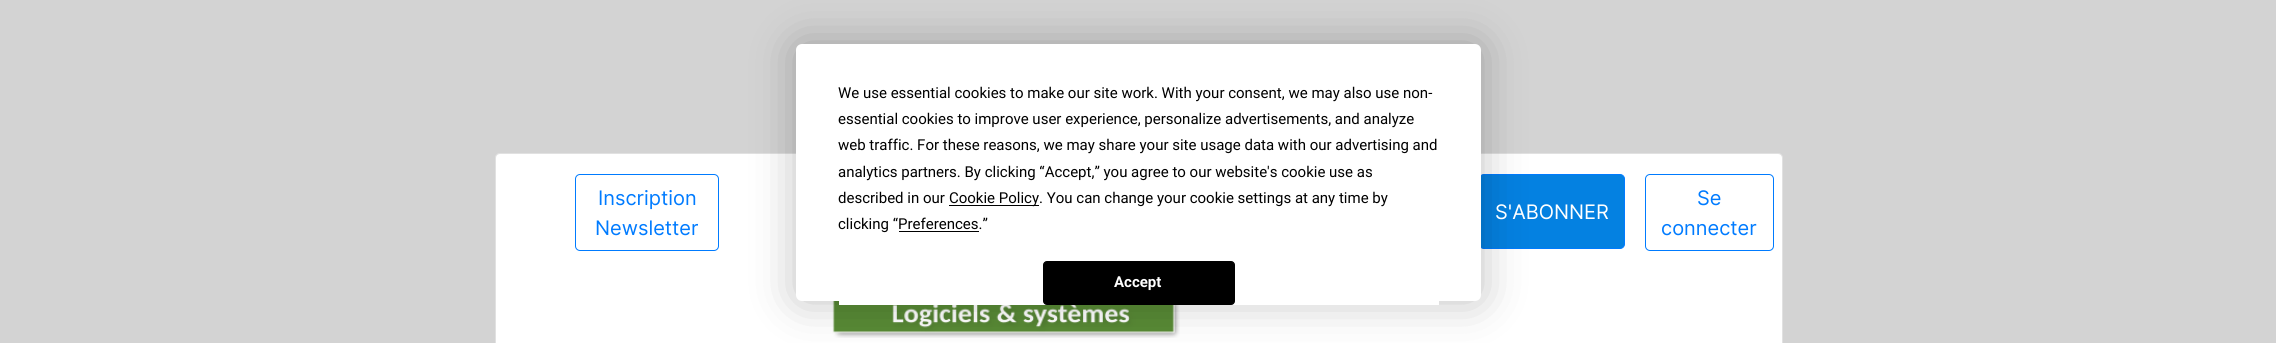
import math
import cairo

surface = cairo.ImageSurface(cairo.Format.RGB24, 2276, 343)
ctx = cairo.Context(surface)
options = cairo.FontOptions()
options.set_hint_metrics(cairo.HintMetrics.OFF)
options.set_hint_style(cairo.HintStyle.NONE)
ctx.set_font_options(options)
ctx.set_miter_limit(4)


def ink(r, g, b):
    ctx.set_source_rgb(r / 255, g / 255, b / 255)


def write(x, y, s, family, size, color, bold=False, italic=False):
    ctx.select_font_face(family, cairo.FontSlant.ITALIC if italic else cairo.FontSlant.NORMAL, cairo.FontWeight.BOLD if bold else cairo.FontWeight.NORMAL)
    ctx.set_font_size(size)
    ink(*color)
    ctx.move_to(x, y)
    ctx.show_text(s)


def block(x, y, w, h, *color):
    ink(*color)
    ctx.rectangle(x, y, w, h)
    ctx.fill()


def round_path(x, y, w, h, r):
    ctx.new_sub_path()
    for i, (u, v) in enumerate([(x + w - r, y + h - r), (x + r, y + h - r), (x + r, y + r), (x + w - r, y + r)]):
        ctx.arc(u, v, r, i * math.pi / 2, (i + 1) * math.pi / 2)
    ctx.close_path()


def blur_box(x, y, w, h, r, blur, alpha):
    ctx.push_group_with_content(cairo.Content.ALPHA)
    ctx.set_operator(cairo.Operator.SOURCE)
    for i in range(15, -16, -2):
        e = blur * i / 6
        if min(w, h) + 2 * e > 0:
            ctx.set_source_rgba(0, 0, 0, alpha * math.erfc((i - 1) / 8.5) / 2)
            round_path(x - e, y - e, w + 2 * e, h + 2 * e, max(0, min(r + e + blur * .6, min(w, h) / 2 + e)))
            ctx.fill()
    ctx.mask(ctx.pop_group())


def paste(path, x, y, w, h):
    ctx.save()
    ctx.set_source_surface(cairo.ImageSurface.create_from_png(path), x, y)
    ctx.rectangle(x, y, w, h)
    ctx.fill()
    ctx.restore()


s1 = dict(family="Roboto", size=15, color=(0, 0, 0))
s2 = dict(family="Roboto", size=15, color=(255, 255, 255), bold=True)
s3 = dict(family="Inter", size=20, color=(0, 123, 255))
s4 = dict(family="Inter", size=20, color=(255, 255, 255))

ink(211, 211, 211)
ctx.paint()
ink(255, 255, 255)
round_path(495, 153, 1288, 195, 5)
ctx.fill()
round_path(495.5, 153.5, 1287, 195, 4.5)
ctx.set_source_rgba(0, 0, 0, 0.12)
ctx.set_line_width(1)
ctx.stroke()
ink(4, 129, 225)
round_path(1479.5, 174.5, 145, 74, 4.5)
ctx.fill_preserve()
ink(0, 123, 255)
ctx.stroke()
paste("pic1.png", 832, 301, 348, 37)
ink(0, 0, 0)
blur_box(796, 44, 685, 257, 6, 22, 0.25)
ink(255, 255, 255)
round_path(796, 44, 685, 257, 6)
ctx.fill()
write(838, 98, "We use essential cookies to make our site work. With your consent, we may also use non-", **s1)
write(838, 124, "essential cookies to improve user experience, personalize advertisements, and analyze", **s1)
write(838, 150, "web traffic. For these reasons, we may share your site usage data with our advertising and", **s1)
write(838, 177, "analytics partners. By clicking “Accept,” you agree to our website's cookie use as", **s1)
write(838, 203, "described in our", **s1)
block(949, 205, 90, 1, 0, 0, 0)
write(949, 203, "Cookie Policy. You can change your cookie settings at any time by", **s1)
write(838, 229, "clicking “Preferences.”", **s1)
block(899, 231, 80, 1, 0, 0, 0)
block(839, 301, 600, 4, 255, 255, 255)
ink(0, 0, 0)
round_path(1043.5, 261.5, 191, 43, 3.5)
ctx.fill_preserve()
ctx.stroke()
write(1114, 287, "Accept", **s2)
round_path(575.5, 174.5, 143, 76, 4.5)
ink(0, 123, 255)
ctx.stroke()
write(598, 205, "Inscription", **s3)
write(595, 235, "Newsletter", **s3)
write(1495, 219, "S'ABONNER", **s4)
round_path(1645.5, 174.5, 128, 76, 4.5)
ink(0, 123, 255)
ctx.stroke()
write(1697, 205, "Se", **s3)
write(1661, 235, "connecter", **s3)
surface.write_to_png("screenshot.png")
